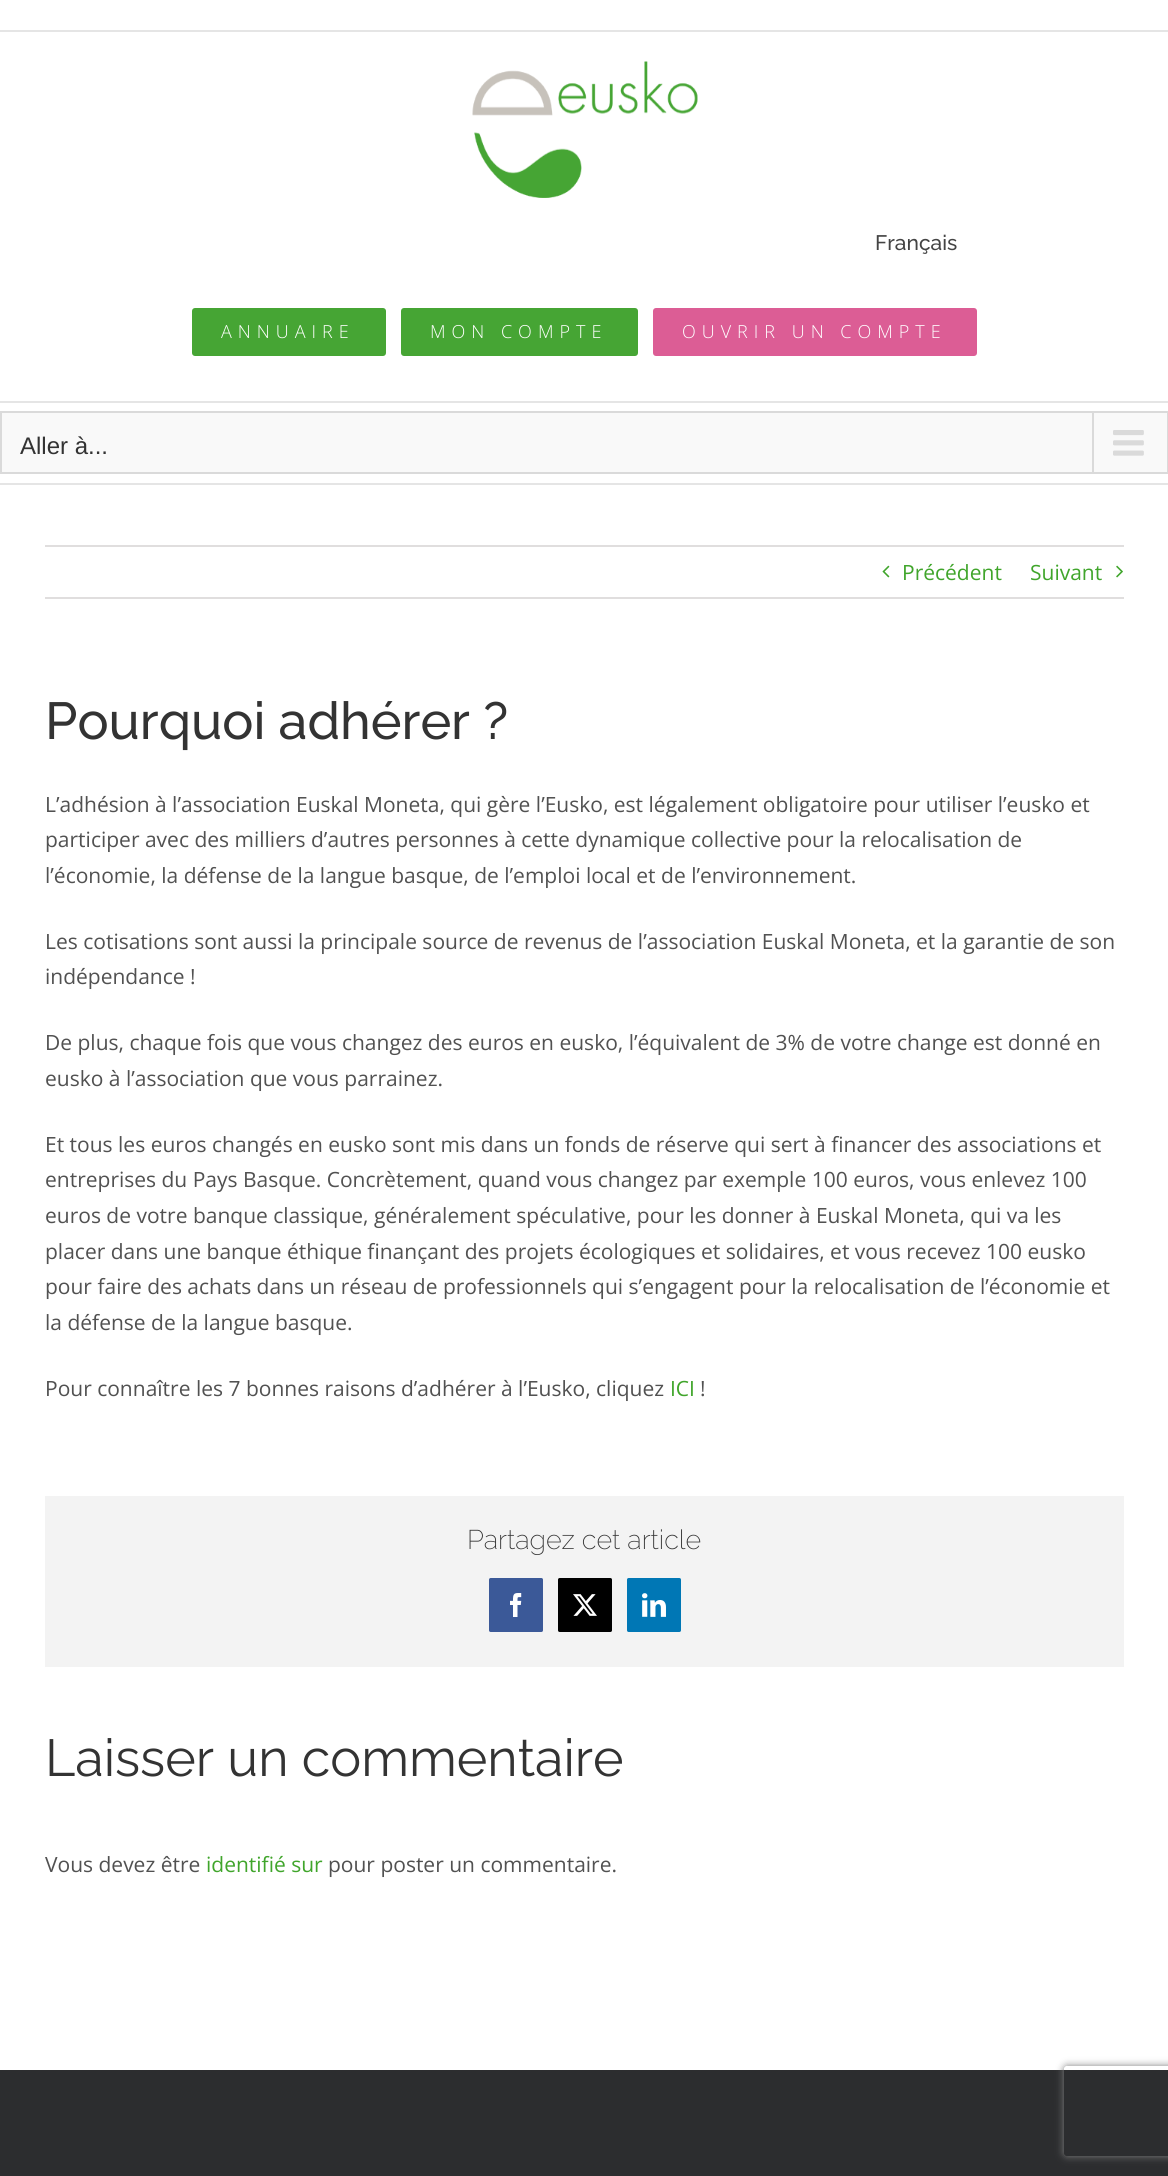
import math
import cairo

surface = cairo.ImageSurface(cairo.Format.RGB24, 1168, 2176)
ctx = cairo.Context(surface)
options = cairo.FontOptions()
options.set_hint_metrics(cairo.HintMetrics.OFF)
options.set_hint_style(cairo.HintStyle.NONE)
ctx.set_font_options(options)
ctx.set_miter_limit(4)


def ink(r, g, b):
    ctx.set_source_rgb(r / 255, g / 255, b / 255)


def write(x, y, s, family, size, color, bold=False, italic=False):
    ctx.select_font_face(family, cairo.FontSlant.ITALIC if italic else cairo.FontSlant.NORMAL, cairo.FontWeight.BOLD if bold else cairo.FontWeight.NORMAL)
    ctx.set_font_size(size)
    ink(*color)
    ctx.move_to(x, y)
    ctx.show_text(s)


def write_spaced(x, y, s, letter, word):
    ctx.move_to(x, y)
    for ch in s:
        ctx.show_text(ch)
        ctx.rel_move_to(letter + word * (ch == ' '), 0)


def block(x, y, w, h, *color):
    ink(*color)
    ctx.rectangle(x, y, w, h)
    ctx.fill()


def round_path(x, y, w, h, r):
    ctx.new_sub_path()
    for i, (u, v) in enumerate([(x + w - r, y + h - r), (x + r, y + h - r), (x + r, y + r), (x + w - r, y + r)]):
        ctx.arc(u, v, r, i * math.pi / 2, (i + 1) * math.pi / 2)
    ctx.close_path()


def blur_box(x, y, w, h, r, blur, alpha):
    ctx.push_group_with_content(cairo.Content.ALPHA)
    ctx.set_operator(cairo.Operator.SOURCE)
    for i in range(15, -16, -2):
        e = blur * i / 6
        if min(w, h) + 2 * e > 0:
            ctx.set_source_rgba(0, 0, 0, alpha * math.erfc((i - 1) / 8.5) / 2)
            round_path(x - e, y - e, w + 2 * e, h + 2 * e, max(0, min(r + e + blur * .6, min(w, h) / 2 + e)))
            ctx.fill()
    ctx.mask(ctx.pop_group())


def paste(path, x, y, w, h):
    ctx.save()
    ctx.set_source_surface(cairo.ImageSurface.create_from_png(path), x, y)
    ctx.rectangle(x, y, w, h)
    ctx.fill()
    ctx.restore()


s1 = dict(family="Raleway Medium", size=21, color=(68, 68, 68))
s2 = dict(family="Liberation Sans", size=24, color=(51, 51, 51))
s3 = dict(family="Open Sans", size=21, color=(64, 165, 43))
s4 = dict(family="Raleway Medium", size=52, color=(51, 51, 51))
s5 = dict(family="Open Sans", size=21, color=(81, 81, 81))
s6 = dict(family="Raleway ExtraLight", size=27, color=(51, 51, 51))
s7 = dict(family="Raleway", size=52, color=(51, 51, 51))

ink(255, 255, 255)
ctx.paint()
block(0, 30, 1168, 2, 229, 229, 229)
block(0, 401, 1168, 2, 229, 229, 229)
paste("pic1.png", 472, 61, 226, 137)
write(875, 250, "Français", **s1)
ink(70, 165, 52)
round_path(192, 308, 194, 48, 3)
ctx.fill()
ctx.select_font_face("Open Sans Light")
ctx.set_font_size(18)
ink(255, 255, 255)
write_spaced(221, 338, "ANNUAIRE", 6, 0)
ink(70, 165, 52)
round_path(401, 308, 237, 48, 3)
ctx.fill()
ink(255, 255, 255)
write_spaced(430, 338, "MON COMPTE", 6, 0)
ink(220, 93, 149)
round_path(653, 308, 324, 48, 3)
ctx.fill()
ink(255, 255, 255)
write_spaced(682, 338, "OUVRIR UN COMPTE", 6, 0)
block(0, 483, 1168, 2, 229, 229, 229)
ink(249, 249, 249)
ctx.rectangle(1, 412, 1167, 61)
ctx.fill_preserve()
ink(218, 218, 218)
ctx.stroke()
write(20, 454, "Aller à...", **s2)
block(1092, 413, 2, 60, 218, 218, 218)
paste("pic2.png", 1113, 430, 31, 26)
block(45, 545, 1079, 2, 224, 222, 222)
block(45, 597, 1079, 2, 224, 222, 222)
paste("pic3.png", 882, 565, 8, 13)
write(902, 580, "Précédent", **s3)
write(1030, 580, "Suivant", **s3)
paste("pic4.png", 1116, 565, 7, 13)
write(45, 739, "Pourquoi adhérer ?", **s4)
write(45, 812, "L’adhésion à l’association Euskal Moneta, qui gère l’Eusko, est légalement obligatoire pour utiliser l’eusko et", **s5)
write(45, 847, "participer avec des milliers d’autres personnes à cette dynamique collective pour la relocalisation de", **s5)
write(45, 883, "l’économie, la défense de la langue basque, de l’emploi local et de l’environnement.", **s5)
write(45, 949, "Les cotisations sont aussi la principale source de revenus de l’association Euskal Moneta, et la garantie de son", **s5)
write(45, 984, "indépendance !", **s5)
write(45, 1050, "De plus, chaque fois que vous changez des euros en eusko, l’équivalent de 3% de votre change est donné en", **s5)
write(45, 1086, "eusko à l’association que vous parrainez.", **s5)
write(45, 1152, "Et tous les euros changés en eusko sont mis dans un fonds de réserve qui sert à financer des associations et", **s5)
write(45, 1187, "entreprises du Pays Basque. Concrètement, quand vous changez par exemple 100 euros, vous enlevez 100", **s5)
write(45, 1223, "euros de votre banque classique, généralement spéculative, pour les donner à Euskal Moneta, qui va les", **s5)
write(45, 1259, "placer dans une banque éthique finançant des projets écologiques et solidaires, et vous recevez 100 eusko", **s5)
write(45, 1294, "pour faire des achats dans un réseau de professionnels qui s’engagent pour la relocalisation de l’économie et", **s5)
write(45, 1330, "la défense de la langue basque.", **s5)
write(45, 1396, "Pour connaître les 7 bonnes raisons d’adhérer à l’Eusko, cliquez", **s5)
write(670, 1396, "ICI", **s3)
write(700, 1396, "!", **s5)
block(45, 1496, 1079, 171, 243, 243, 243)
write(467, 1549, "Partagez cet article", **s6)
ink(59, 89, 152)
round_path(490, 1579, 52, 52, 0.5)
ctx.fill_preserve()
ctx.stroke()
paste("pic5.png", 510, 1593, 12, 24)
ink(0, 0, 0)
round_path(559, 1579, 52, 52, 0.5)
ctx.fill_preserve()
ctx.stroke()
paste("pic6.png", 573, 1594, 24, 22)
ink(0, 119, 181)
round_path(628, 1579, 52, 52, 0.5)
ctx.fill_preserve()
ctx.stroke()
paste("pic7.png", 642, 1593, 24, 24)
write(45, 1776, "Laisser un commentaire", **s7)
write(45, 1872, "Vous devez être", **s5)
write(206, 1872, "identifié sur", **s3)
write(328, 1872, "pour poster un commentaire.", **s5)
block(0, 2070, 1168, 106, 44, 45, 47)
ctx.save()
ctx.set_fill_rule(cairo.FillRule.EVEN_ODD)
ctx.new_path()
ctx.move_to(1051, 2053)
ctx.line_to(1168, 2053)
ctx.line_to(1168, 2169)
ctx.line_to(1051, 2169)
ctx.close_path()
ctx.move_to(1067, 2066)
ctx.line_to(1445, 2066)
ctx.curve_to(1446.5, 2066, 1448, 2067.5, 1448, 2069)
ctx.line_to(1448, 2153)
ctx.curve_to(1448, 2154.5, 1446.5, 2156, 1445, 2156)
ctx.line_to(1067, 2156)
ctx.curve_to(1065.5, 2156, 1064, 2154.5, 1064, 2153)
ctx.line_to(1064, 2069)
ctx.curve_to(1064, 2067.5, 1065.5, 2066, 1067, 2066)
ctx.close_path()
ctx.clip()
ink(128, 128, 128)
blur_box(1064, 2066, 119, 90, 3, 4, 1)
ctx.restore()
surface.write_to_png("screenshot.png")
